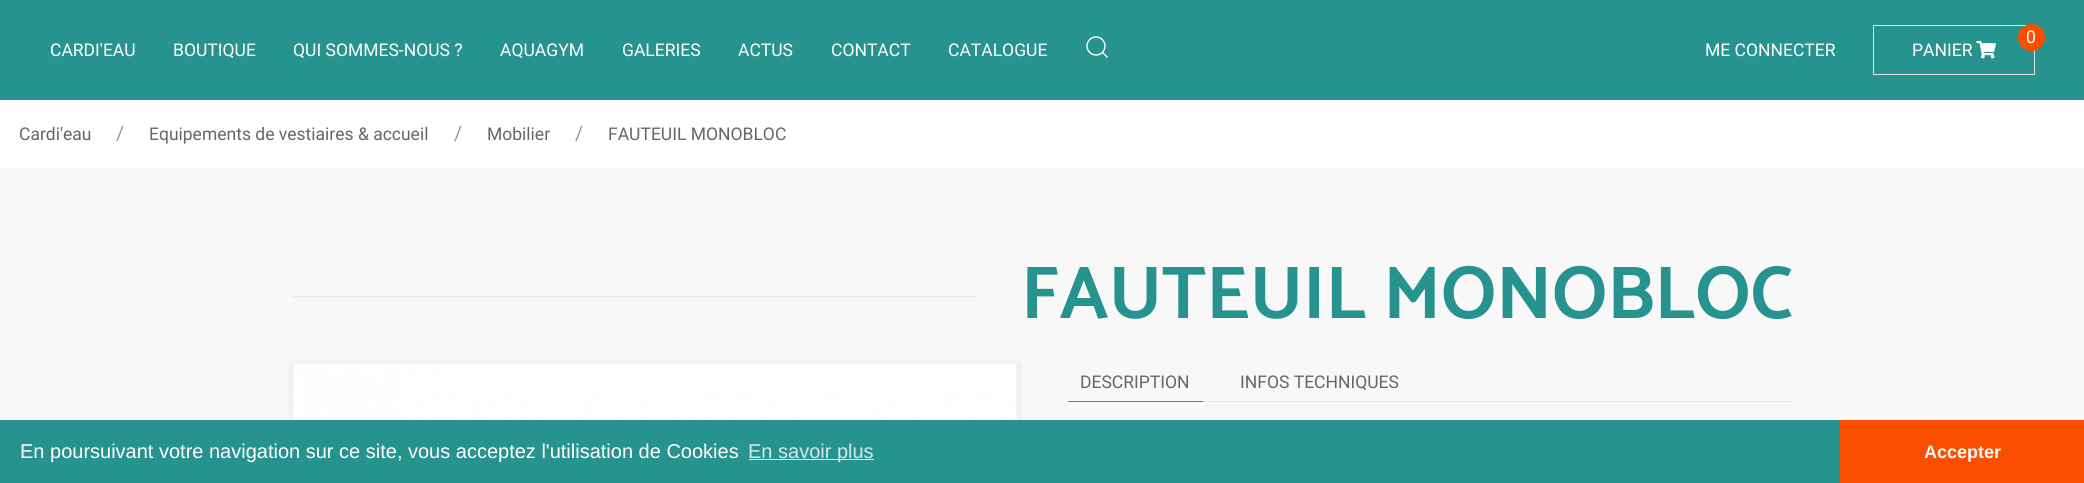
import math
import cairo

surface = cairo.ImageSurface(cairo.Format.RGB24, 2084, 483)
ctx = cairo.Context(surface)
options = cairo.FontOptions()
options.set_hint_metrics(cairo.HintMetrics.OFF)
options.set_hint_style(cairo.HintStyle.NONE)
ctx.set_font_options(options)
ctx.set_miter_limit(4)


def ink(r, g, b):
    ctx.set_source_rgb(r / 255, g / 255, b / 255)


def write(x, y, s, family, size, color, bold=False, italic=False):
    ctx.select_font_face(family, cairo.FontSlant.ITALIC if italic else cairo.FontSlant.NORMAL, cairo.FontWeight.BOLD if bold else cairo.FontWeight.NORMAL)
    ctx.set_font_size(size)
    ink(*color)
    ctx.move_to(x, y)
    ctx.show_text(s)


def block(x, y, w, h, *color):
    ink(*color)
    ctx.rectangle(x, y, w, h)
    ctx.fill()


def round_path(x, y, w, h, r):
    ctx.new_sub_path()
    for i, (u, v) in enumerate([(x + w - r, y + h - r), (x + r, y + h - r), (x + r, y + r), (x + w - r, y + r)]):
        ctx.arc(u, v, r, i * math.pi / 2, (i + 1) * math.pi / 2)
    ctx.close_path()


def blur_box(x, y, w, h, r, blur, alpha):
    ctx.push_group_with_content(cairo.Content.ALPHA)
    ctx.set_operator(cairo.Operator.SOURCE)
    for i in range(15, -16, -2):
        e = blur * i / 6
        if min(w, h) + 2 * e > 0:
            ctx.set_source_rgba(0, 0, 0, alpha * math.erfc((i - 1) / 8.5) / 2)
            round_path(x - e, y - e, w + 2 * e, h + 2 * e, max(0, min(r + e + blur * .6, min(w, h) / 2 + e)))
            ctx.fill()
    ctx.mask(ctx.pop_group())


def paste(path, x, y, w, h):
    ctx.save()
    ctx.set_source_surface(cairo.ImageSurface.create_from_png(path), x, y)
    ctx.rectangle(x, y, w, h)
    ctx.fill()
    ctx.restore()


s1 = dict(family="Roboto", size=17.5, color=(255, 255, 255))
s2 = dict(family="Roboto", size=17.5, color=(102, 102, 102))
s3 = dict(family="Roboto", size=20, color=(153, 153, 153))
s4 = dict(family="Catamaran", size=75, color=(38, 147, 142), bold=True)
s5 = dict(family="Liberation Sans", size=20, color=(255, 255, 255))
s6 = dict(family="Liberation Sans", size=20, color=(212, 233, 232))
s7 = dict(family="Liberation Sans", size=18, color=(255, 255, 255), bold=True)

ink(248, 248, 248)
ctx.paint()
block(0, 0, 2084, 100, 38, 147, 142)
write(50, 56, "CARDI'EAU", **s1)
write(173, 56, "BOUTIQUE", **s1)
write(293, 56, "QUI SOMMES-NOUS ?", **s1)
write(500, 56, "AQUAGYM", **s1)
write(622, 56, "GALERIES", **s1)
write(738, 56, "ACTUS", **s1)
write(831, 56, "CONTACT", **s1)
write(948, 56, "CATALOGUE", **s1)
ctx.new_path()
ctx.arc(1096, 46, 9, 0, 2 * math.pi)
ctx.set_line_width(1.4)
ctx.stroke()
ctx.new_path()
ctx.move_to(1102.5, 52.5)
ctx.line_to(1107.5, 57.5)
ctx.close_path()
ctx.stroke()
write(1705, 56, "ME CONNECTER", **s1)
ctx.rectangle(1873.5, 25.5, 161, 49)
ink(229, 229, 229)
ctx.set_line_width(1)
ctx.stroke()
ink(251, 78, 1)
ctx.arc(2031.5, 37.5, 13.5, 0, 2 * math.pi)
ctx.fill()
write(2026, 43, "0", **s1)
write(1912, 56, "PANIER", **s1)
paste("pic1.png", 1976, 40, 20, 19)
block(0, 100, 2084, 68, 255, 255, 255)
write(19, 140, "Cardi'eau", **s2)
write(116, 140, "/", **s3)
write(149, 140, "Equipements de vestiaires & accueil", **s2)
write(454, 140, "/", **s3)
write(487, 140, "Mobilier", **s2)
write(575, 140, "/", **s3)
write(608, 140, "FAUTEUIL MONOBLOC", **s2)
block(293, 296, 683, 1, 229, 229, 229)
write(1021, 318, "FAUTEUIL MONOBLOC", **s4)
ink(0, 0, 0)
blur_box(293, 365, 725, 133, 0, 5, 0.08)
paste("pic2.png", 293, 364, 724, 56)
block(1068, 401, 135, 1, 251, 78, 1)
write(1080, 388, "DESCRIPTION", **s2)
write(1240, 388, "INFOS TECHNIQUES", **s2)
block(1203, 401, 590, 1, 229, 229, 229)
block(0, 420, 1840, 63, 38, 147, 142)
write(20, 458, "En poursuivant votre navigation sur ce site, vous acceptez l'utilisation de Cookies", **s5)
block(749, 459, 125, 1, 212, 233, 232)
write(748, 458, "En savoir plus", **s6)
block(1840, 420, 244, 63, 251, 78, 1)
write(1924, 458, "Accepter", **s7)
surface.write_to_png("screenshot.png")
